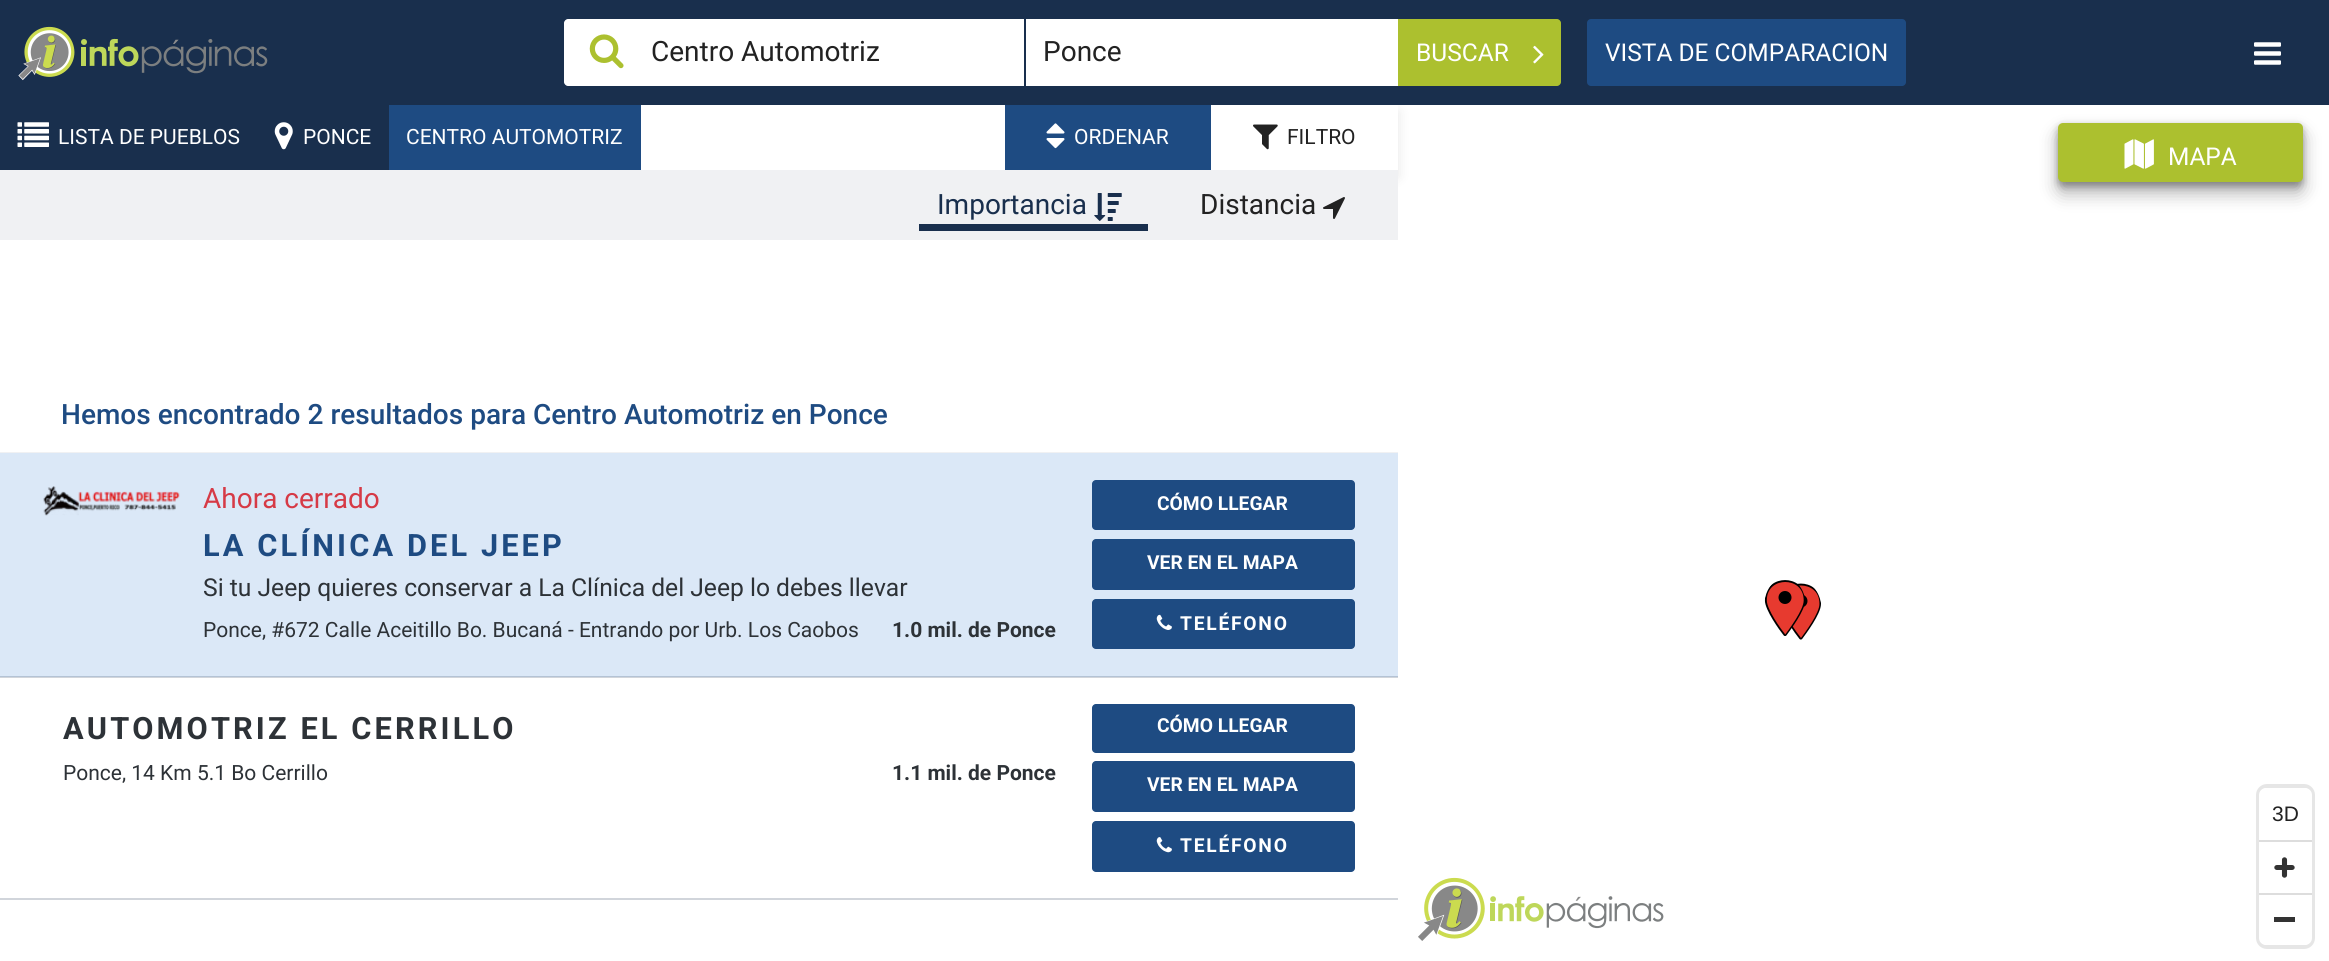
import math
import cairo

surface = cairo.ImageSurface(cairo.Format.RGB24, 2329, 961)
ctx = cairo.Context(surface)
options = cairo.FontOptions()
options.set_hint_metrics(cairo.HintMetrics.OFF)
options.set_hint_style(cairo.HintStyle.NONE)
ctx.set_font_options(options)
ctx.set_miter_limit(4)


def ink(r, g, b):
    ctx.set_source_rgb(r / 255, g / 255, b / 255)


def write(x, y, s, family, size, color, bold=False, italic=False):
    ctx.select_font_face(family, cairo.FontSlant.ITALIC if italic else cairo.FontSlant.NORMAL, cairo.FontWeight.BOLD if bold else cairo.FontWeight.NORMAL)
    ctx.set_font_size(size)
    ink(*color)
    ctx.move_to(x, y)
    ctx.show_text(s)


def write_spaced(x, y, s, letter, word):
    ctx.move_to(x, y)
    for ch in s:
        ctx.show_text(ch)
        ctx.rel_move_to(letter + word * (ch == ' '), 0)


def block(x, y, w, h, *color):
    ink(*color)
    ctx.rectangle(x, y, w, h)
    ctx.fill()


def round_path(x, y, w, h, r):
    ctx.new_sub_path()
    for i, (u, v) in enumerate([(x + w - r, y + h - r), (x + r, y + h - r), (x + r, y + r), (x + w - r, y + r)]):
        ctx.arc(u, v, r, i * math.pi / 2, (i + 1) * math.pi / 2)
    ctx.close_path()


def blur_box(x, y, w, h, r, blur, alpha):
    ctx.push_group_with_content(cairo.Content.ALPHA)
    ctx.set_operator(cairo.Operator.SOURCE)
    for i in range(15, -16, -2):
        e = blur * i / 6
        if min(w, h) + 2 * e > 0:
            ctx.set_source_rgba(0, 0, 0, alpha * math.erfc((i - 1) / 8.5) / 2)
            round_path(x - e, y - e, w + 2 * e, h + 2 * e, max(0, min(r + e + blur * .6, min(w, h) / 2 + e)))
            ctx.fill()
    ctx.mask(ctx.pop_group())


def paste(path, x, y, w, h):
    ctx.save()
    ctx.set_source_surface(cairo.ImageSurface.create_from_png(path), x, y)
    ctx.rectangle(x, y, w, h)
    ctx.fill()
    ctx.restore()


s1 = dict(family="Roboto", size=28, color=(34, 34, 34))
s2 = dict(family="Roboto", size=24.5, color=(255, 255, 255))
s3 = dict(family="Roboto", size=21, color=(255, 255, 255))
s4 = dict(family="Roboto", size=21, color=(34, 34, 34))
s5 = dict(family="Roboto", size=28, color=(25, 47, 77))
s6 = dict(family="Roboto Medium", size=28, color=(30, 75, 130))
s7 = dict(family="Roboto", size=28, color=(214, 58, 70))
s8 = dict(family="Roboto", size=24.65, color=(45, 50, 55))
s9 = dict(family="Roboto", size=21, color=(45, 50, 55))
s10 = dict(family="Roboto", size=21, color=(45, 50, 55), bold=True)
s11 = dict(family="Roboto", size=19.25, color=(255, 255, 255), bold=True)
s12 = dict(family="Liberation Sans", size=21, color=(34, 34, 34))

ink(255, 255, 255)
ctx.paint()
block(0, 677, 1398, 1, 209, 213, 219)
ink(0, 0, 0)
blur_box(0, 112, 1398, 65, 0, 6, 0.1)
block(0, 0, 2329, 105, 25, 47, 77)
paste("pic1.png", 18, 26, 57, 55)
paste("pic2.png", 81, 38, 187, 36)
ink(255, 255, 255)
ctx.new_path()
ctx.move_to(568, 19)
ctx.line_to(1026, 19)
ctx.line_to(1026, 86)
ctx.line_to(568, 86)
ctx.curve_to(566, 86, 564, 84, 564, 82)
ctx.line_to(564, 23)
ctx.curve_to(564, 21, 566, 19, 568, 19)
ctx.close_path()
ctx.fill()
paste("pic3.png", 589, 34, 35, 35)
block(1024, 19, 2, 67, 25, 47, 77)
write(651, 61, "Centro Automotriz", **s1)
block(1026, 19, 372, 67, 255, 255, 255)
write(1043, 61, "Ponce", **s1)
ink(172, 192, 47)
ctx.new_path()
ctx.move_to(1398, 19)
ctx.line_to(1557, 19)
ctx.curve_to(1559, 19, 1561, 21, 1561, 23)
ctx.line_to(1561, 82)
ctx.curve_to(1561, 84, 1559, 86, 1557, 86)
ctx.line_to(1398, 86)
ctx.close_path()
ctx.fill()
write(1416, 61, "BUSCAR", **s2)
paste("pic4.png", 1533, 45, 11, 19)
ink(30, 75, 130)
round_path(1587, 19, 319, 67, 4)
ctx.fill()
write(1605, 61, "VISTA DE COMPARACION", **s2)
paste("pic5.png", 2254, 42, 27, 23)
block(641, 105, 757, 65, 255, 255, 255)
block(0, 105, 389, 65, 25, 47, 77)
paste("pic6.png", 17, 122, 32, 25)
write(58, 144, "LISTA DE PUEBLOS", **s3)
paste("pic7.png", 274, 122, 19, 28)
write(303, 144, "PONCE", **s3)
block(389, 105, 252, 65, 30, 75, 130)
write(406, 144, "CENTRO AUTOMOTRIZ", **s3)
block(1005, 105, 206, 65, 30, 75, 130)
paste("pic8.png", 1046, 123, 19, 26)
write(1074, 144, "ORDENAR", **s3)
paste("pic9.png", 1253, 124, 25, 26)
write(1287, 144, "FILTRO", **s4)
block(0, 170, 1398, 70, 240, 241, 243)
write(937, 214, "Importancia", **s5)
paste("pic10.png", 1094, 193, 28, 28)
block(919, 224, 229, 7, 25, 47, 77)
write(1200, 214, "Distancia", **s1)
paste("pic11.png", 1323, 197, 22, 22)
ink(0, 0, 0)
blur_box(2058, 133, 245, 60, 5, 9, 0.3)
blur_box(2058, 126, 245, 60, 5, 3.5, 0.3)
ink(172, 192, 47)
round_path(2058, 123, 245, 59, 5)
ctx.fill()
paste("pic12.png", 2124, 139, 30, 30)
write(2168, 165, "MAPA", **s2)
block(0, 452, 1398, 1, 240, 241, 243)
write(61, 424, "Hemos encontrado 2 resultados para Centro Automotriz en Ponce", **s6)
block(0, 453, 1398, 223, 219, 232, 247)
block(0, 676, 1398, 1, 180, 195, 213)
paste("pic13.png", 43, 486, 137, 30)
write(203, 508, "Ahora cerrado", **s7)
ctx.select_font_face("Roboto", cairo.FontSlant.NORMAL, cairo.FontWeight.BOLD)
ctx.set_font_size(30.75)
ink(30, 75, 130)
write_spaced(203, 556, "LA CLÍNICA DEL JEEP", 3.1, 0)
write(203, 596, "Si tu Jeep quieres conservar a La Clínica del Jeep lo debes llevar", **s8)
write(203, 637, "Ponce, #672 Calle Aceitillo Bo. Bucaná - Entrando por Urb. Los Caobos", **s9)
write(892, 637, "1.0 mil. de Ponce", **s10)
ink(30, 75, 130)
round_path(1092, 480, 263, 50, 4)
ctx.fill()
write(1157, 510, "CÓMO LLEGAR", **s11)
ink(30, 75, 130)
round_path(1092, 539, 263, 51, 4)
ctx.fill()
write(1147, 569, "VER EN EL MAPA", **s11)
ink(30, 75, 130)
round_path(1092, 599, 263, 50, 4)
ctx.fill()
paste("pic14.png", 1156, 614, 16, 16)
ink(255, 255, 255)
write_spaced(1180, 630, "TELÉFONO", 1.75, 0)
block(0, 898, 1398, 2, 209, 213, 219)
ctx.set_font_size(30.75)
ink(45, 50, 55)
write_spaced(63, 739, "AUTOMOTRIZ EL CERRILLO", 3.1, 0)
write(63, 780, "Ponce, 14 Km 5.1 Bo Cerrillo", **s9)
write(892, 780, "1.1 mil. de Ponce", **s10)
ink(30, 75, 130)
round_path(1092, 704, 263, 49, 4)
ctx.fill()
write(1157, 732, "CÓMO LLEGAR", **s11)
ink(30, 75, 130)
round_path(1092, 761, 263, 51, 4)
ctx.fill()
write(1147, 791, "VER EN EL MAPA", **s11)
ink(30, 75, 130)
round_path(1092, 821, 263, 51, 4)
ctx.fill()
paste("pic15.png", 1156, 837, 16, 16)
ink(255, 255, 255)
write_spaced(1180, 852, "TELÉFONO", 1.75, 0)
paste("pic17.png", 1791, 583, 30, 57)
paste("pic16.png", 1764, 580, 41, 56)
round_path(2258, 786, 55, 161, 9)
ink(230, 230, 230)
ctx.set_line_width(4)
ctx.stroke()
ink(255, 255, 255)
round_path(2259, 788, 53, 157, 7)
ctx.fill()
write(2272, 821, "3D", **s12)
paste("pic18.png", 2274, 857, 21, 21)
block(2259, 840, 53, 2, 221, 221, 221)
block(2274, 917, 21, 5, 51, 51, 51)
block(2259, 893, 53, 2, 221, 221, 221)
paste("pic19.png", 1418, 877, 67, 64)
paste("pic20.png", 1490, 896, 174, 33)
surface.write_to_png("screenshot.png")
